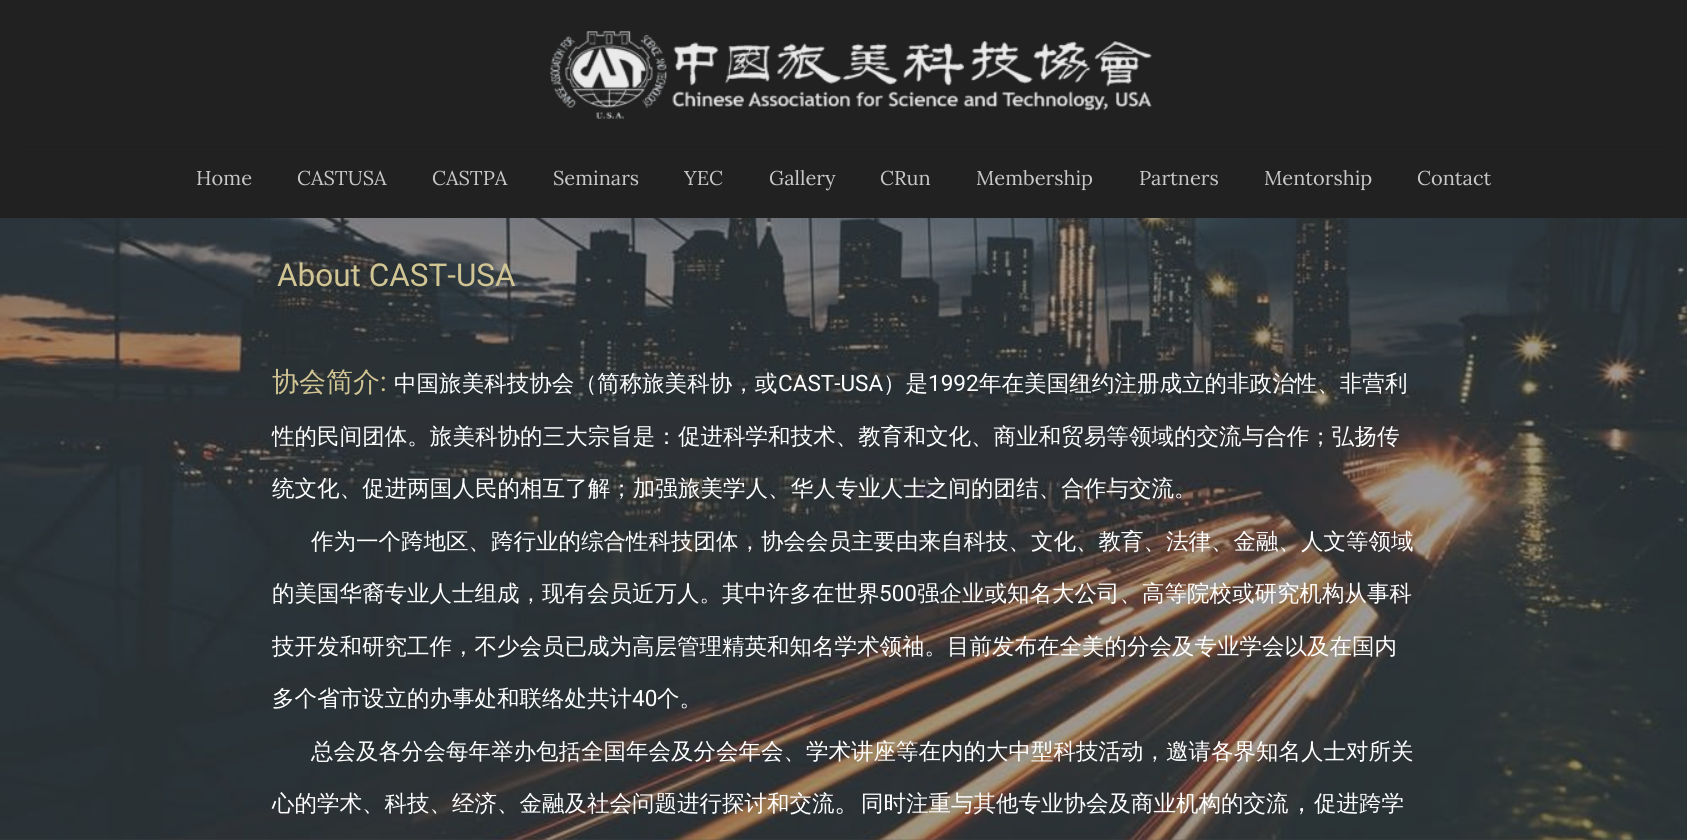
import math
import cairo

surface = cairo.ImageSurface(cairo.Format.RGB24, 1687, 840)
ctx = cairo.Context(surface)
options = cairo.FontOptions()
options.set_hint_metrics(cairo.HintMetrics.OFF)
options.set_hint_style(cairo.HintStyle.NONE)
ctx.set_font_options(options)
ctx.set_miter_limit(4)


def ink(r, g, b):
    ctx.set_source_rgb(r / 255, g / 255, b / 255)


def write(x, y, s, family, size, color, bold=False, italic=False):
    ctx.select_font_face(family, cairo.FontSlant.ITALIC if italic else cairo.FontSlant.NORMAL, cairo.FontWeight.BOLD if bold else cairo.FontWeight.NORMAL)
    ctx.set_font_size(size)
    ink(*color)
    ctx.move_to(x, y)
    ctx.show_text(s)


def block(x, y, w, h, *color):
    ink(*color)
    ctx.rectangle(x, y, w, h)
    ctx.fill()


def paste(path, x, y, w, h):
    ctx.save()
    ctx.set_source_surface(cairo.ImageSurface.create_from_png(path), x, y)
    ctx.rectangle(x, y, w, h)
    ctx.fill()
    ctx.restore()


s1 = dict(family="Lora", size=20, color=(200, 200, 200))
s2 = dict(family="Roboto", size=31.5, color=(210, 197, 148))
s3 = dict(family="WenQuanYi Zen Hei Medium", size=27, color=(210, 197, 148))
s4 = dict(family="Roboto", size=27, color=(210, 197, 148))
s5 = dict(family="WenQuanYi Zen Hei Medium", size=22.55, color=(255, 255, 255))
s6 = dict(family="Roboto", size=22.55, color=(255, 255, 255))
s7 = dict(family="WenQuanYi Zen Hei Medium", size=22.5, color=(255, 255, 255))
s8 = dict(family="Roboto", size=22.5, color=(255, 255, 255))
s9 = dict(family="WenQuanYi Zen Hei Medium", size=27, color=(255, 255, 255))
s10 = dict(family="WenQuanYi Zen Hei Medium", size=25, color=(255, 255, 255))

ink(80, 80, 80)
ctx.paint()
block(0, 0, 1687, 218, 33, 33, 33)
paste("pic1.png", 549, 31, 603, 88)
block(19, 146, 1650, 1, 30, 30, 30)
write(196, 185, "Home", **s1)
write(297, 185, "CASTUSA", **s1)
write(432, 185, "CASTPA", **s1)
write(553, 185, "Seminars", **s1)
write(684, 185, "YEC", **s1)
write(769, 185, "Gallery", **s1)
write(880, 185, "CRun", **s1)
write(976, 185, "Membership", **s1)
write(1139, 185, "Partners", **s1)
write(1264, 185, "Mentorship", **s1)
write(1417, 185, "Contact", **s1)
paste("pic2.png", 0, 218, 1687, 622)
write(277, 286, "About CAST-USA", **s2)
write(272, 391, "协会简介", **s3)
write(380, 391, ":", **s4)
write(394, 391, "中国旅美科技协会（简称旅美科协，或", **s5)
write(778, 391, "CAST-USA", **s6)
write(883, 391, "）是", **s5)
write(928, 391, "1992", **s6)
write(979, 391, "年在美国纽约注册成立的非政治性、非营利", **s5)
write(272, 444, "性的民间团体。旅美科协的三大宗旨是：促进科学和技术、教育和文化、商业和贸易等领域的交流与合作；弘扬传", **s5)
write(272, 496, "统文化、促进两国人民的相互了解；加强旅美学人、华人专业人士之间的团结、合作与交流。", **s5)
write(311, 549, "作为一个跨地区、跨行业的综合性科技团体，协会会员主要由来自科技、文化、教育、法律、金融、人文等领域", **s7)
write(272, 601, "的美国华裔专业人士组成，现有会员近万人。其中许多在世界", **s7)
write(879, 601, "500", **s8)
write(917, 601, "强企业或知名大公司、高等院校或研究机构从事科", **s7)
write(272, 654, "技开发和研究工作，不少会员已成为高层管理精英和知名学术领䄂。目前发布在全美的分会及专业学会以及在国内", **s7)
write(272, 706, "多个省市设立的办事处和联络处共计", **s7)
write(632, 706, "40", **s8)
write(657, 706, "个。", **s7)
write(311, 759, "总会及各分会每年举办包括全国年会及分会年会、学术讲座等在内的大中型科技活动，邀请各界知名人士对所关", **s7)
write(272, 811, "心的学术、科技、经济、金融及社会问题进行探讨和交流", **s7)
write(834, 811, "。", **s9)
write(861, 811, "同时注重与其他专业协会及商业机构的交流", **s7)
write(1289, 811, "，", **s10)
write(1314, 811, "促进跨学", **s7)
surface.write_to_png("screenshot.png")
